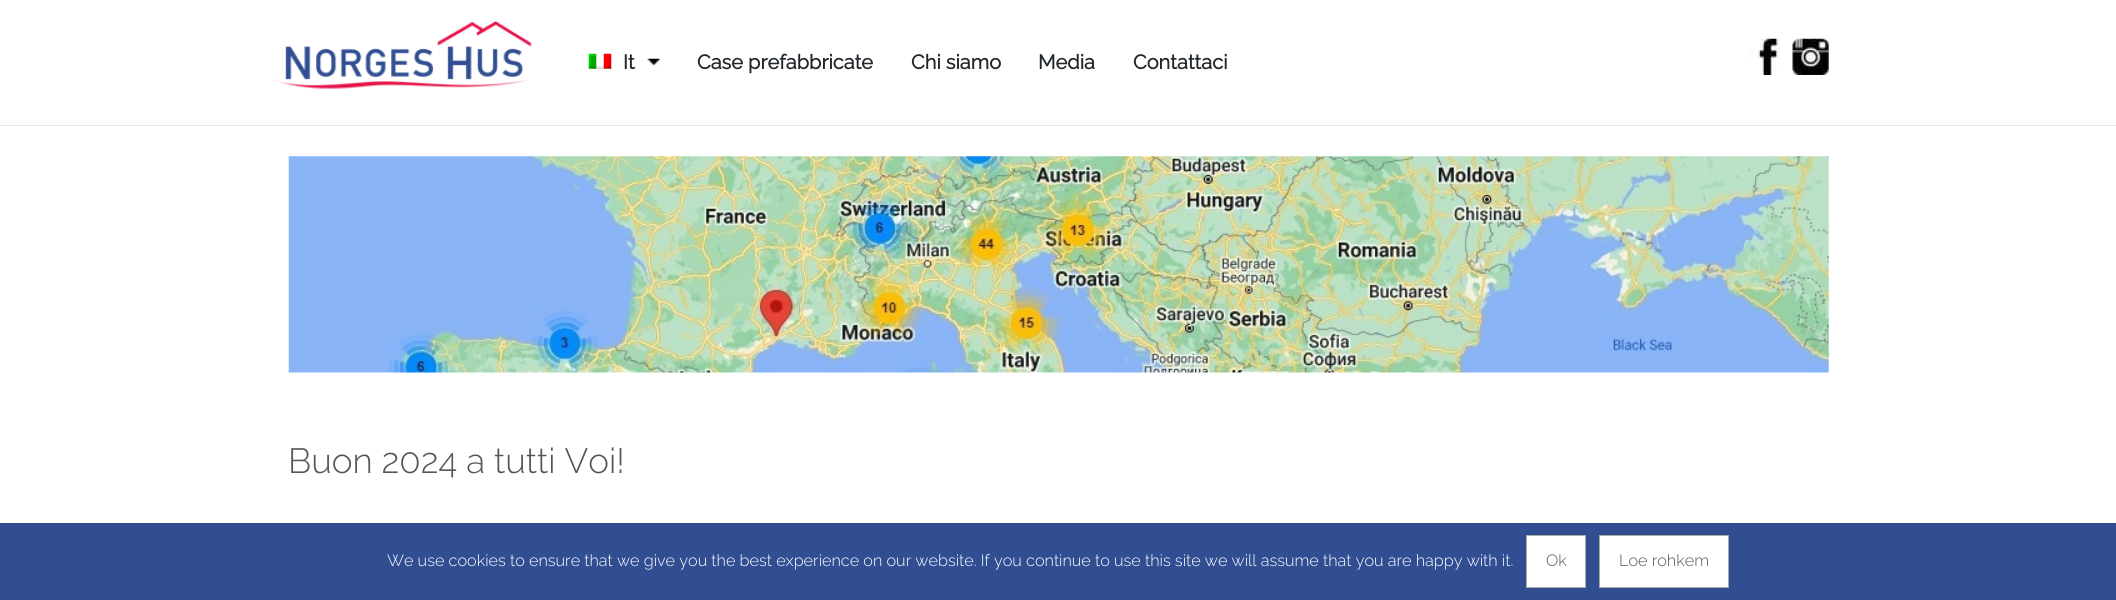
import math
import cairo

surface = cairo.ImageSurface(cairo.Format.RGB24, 2116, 600)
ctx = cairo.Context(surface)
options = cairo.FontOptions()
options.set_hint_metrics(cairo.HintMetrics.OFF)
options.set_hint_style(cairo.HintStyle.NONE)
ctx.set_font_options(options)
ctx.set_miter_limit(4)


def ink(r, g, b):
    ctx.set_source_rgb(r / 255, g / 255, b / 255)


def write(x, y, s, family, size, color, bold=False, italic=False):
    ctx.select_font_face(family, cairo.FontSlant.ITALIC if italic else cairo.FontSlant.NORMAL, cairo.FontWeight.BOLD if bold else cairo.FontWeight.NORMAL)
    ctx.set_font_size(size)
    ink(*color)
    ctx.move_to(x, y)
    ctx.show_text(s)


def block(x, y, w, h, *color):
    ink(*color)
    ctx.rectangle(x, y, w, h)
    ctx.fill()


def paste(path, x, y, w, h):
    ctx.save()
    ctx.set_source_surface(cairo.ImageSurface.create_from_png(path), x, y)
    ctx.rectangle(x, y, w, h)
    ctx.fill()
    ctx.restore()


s1 = dict(family="Raleway", size=20, color=(35, 40, 45), bold=True)
s2 = dict(family="Raleway Light", size=35, color=(85, 85, 85))
s3 = dict(family="Raleway Light", size=16.25, color=(255, 255, 255))
s4 = dict(family="Raleway Light", size=16.25, color=(85, 85, 85))

ink(255, 255, 255)
ctx.paint()
paste("pic1.png", 272, 21, 260, 68)
paste("pic2.png", 588, 53, 24, 16)
write(623, 69, "It", **s1)
paste("pic3.png", 647, 58, 13, 7)
write(697, 69, "Case prefabbricate", **s1)
write(911, 69, "Chi siamo", **s1)
write(1038, 69, "Media", **s1)
write(1133, 69, "Contattaci", **s1)
paste("pic4.png", 1750, 38, 30, 37)
paste("pic5.png", 1792, 38, 37, 37)
block(0, 125, 2116, 1, 230, 230, 230)
paste("pic6.png", 288, 156, 1541, 217)
write(288, 473, "Buon 2024 a tutti Voi!", **s2)
block(0, 523, 2116, 77, 49, 78, 146)
write(387, 566, "We use cookies to ensure that we give you the best experience on our website. If you continue to use this site we will assume that you are happy with it.", **s3)
ctx.rectangle(1526.5, 535.5, 59, 52)
ctx.fill_preserve()
ink(170, 170, 170)
ctx.set_line_width(1)
ctx.stroke()
write(1546, 566, "Ok", **s4)
ink(255, 255, 255)
ctx.rectangle(1599.5, 535.5, 129, 52)
ctx.fill_preserve()
ink(170, 170, 170)
ctx.stroke()
write(1619, 566, "Loe rohkem", **s4)
surface.write_to_png("screenshot.png")
